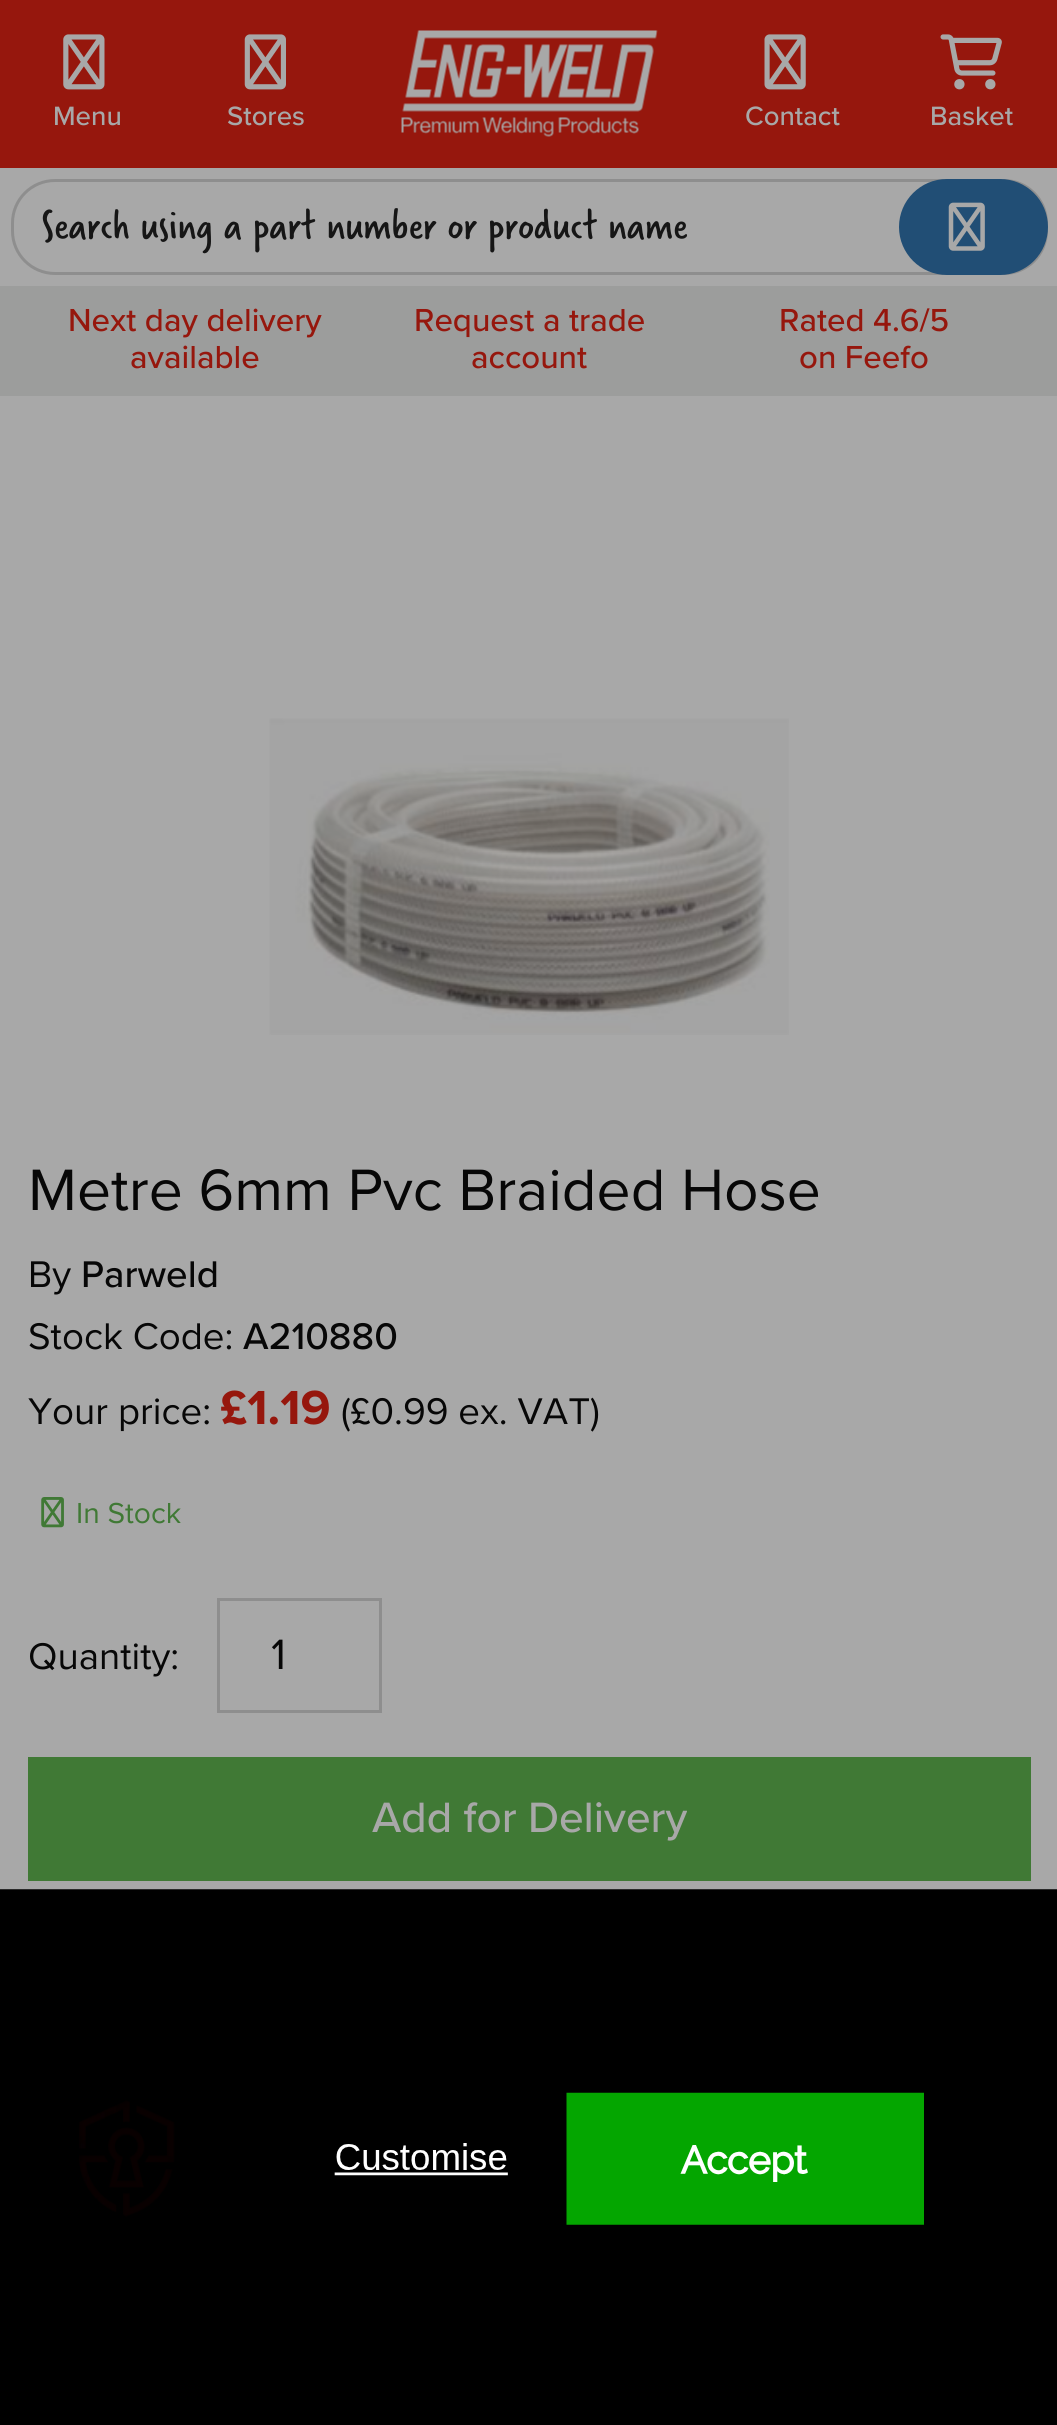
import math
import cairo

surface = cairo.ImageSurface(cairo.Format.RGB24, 1057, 2425)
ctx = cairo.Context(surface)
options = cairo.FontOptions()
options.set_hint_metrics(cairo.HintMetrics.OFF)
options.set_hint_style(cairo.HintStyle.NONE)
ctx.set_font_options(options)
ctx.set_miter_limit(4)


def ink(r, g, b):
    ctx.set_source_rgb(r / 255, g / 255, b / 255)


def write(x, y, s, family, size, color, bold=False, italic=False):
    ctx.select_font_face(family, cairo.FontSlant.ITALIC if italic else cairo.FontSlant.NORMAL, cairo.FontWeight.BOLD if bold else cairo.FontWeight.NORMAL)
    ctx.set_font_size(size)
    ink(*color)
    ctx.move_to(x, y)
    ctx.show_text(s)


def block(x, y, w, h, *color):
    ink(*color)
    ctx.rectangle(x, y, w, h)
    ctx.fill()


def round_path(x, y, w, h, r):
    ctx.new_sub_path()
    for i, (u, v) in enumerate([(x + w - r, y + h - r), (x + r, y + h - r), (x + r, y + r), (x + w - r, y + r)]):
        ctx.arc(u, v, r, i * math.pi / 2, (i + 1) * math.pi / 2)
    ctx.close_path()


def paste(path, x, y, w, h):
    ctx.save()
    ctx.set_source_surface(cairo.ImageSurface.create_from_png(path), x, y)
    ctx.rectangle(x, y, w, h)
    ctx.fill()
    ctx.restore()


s1 = dict(family="Proxima Nova Medium", size=27.5, color=(168, 168, 168))
s2 = dict(family="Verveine", size=44, color=(22, 22, 22))
s3 = dict(family="Proxima Nova Medium", size=33, color=(150, 23, 13))
s4 = dict(family="Proxima Nova", size=60.5, color=(7, 7, 7))
s5 = dict(family="Proxima Nova", size=38.5, color=(7, 7, 7))
s6 = dict(family="Proxima Nova Medium", size=38.5, color=(7, 7, 7))
s7 = dict(family="Proxima Nova", size=49.5, color=(150, 23, 13), bold=True)
s8 = dict(family="Proxima Nova", size=30, color=(64, 121, 53))
s9 = dict(family="Proxima Nova", size=44, color=(7, 7, 7))
s10 = dict(family="Proxima Nova Medium", size=44, color=(168, 168, 168))

ink(168, 168, 168)
ctx.paint()
block(0, 0, 1057, 168, 150, 23, 13)
paste("pic1.png", 63, 34, 42, 56)
write(53, 125, "Menu", **s1)
paste("pic2.png", 244, 34, 42, 56)
write(227, 125, "Stores", **s1)
paste("pic3.png", 401, 30, 257, 107)
paste("pic4.png", 764, 34, 42, 56)
write(745, 125, "Contact", **s1)
paste("pic5.png", 940, 34, 62, 56)
write(930, 125, "Basket", **s1)
round_path(12.5, 180.5, 1034, 93, 42.5)
ink(142, 142, 142)
ctx.set_line_width(3)
ctx.stroke()
write(41, 238, "Search using a part number or product name", **s2)
ink(33, 78, 117)
round_path(900.5, 180.5, 146, 93, 46.5)
ctx.fill_preserve()
ctx.stroke()
paste("pic6.png", 948, 202, 37, 49)
block(0, 286, 1057, 110, 156, 157, 156)
write(68, 331, "Next day delivery", **s3)
write(130, 368, "available", **s3)
write(414, 331, "Request a trade", **s3)
write(471, 368, "account", **s3)
write(779, 331, "Rated 4.6/5", **s3)
write(799, 368, "on Feefo", **s3)
paste("pic7.png", 269, 718, 520, 317)
write(28, 1210, "Metre 6mm Pvc Braided Hose", **s4)
write(28, 1287, "By", **s5)
write(81, 1287, "Parweld", **s6)
write(28, 1349, "Stock Code:", **s5)
write(243, 1349, "A210880", **s6)
write(28, 1424, "Your price:", **s5)
write(220, 1424, "£1.19", **s7)
write(341, 1424, "(£0.99 ex. VAT)", **s5)
paste("pic8.png", 41, 1497, 23, 31)
write(76, 1523, "In Stock", **s8)
write(28, 1669, "Quantity:", **s5)
ctx.rectangle(218.5, 1599.5, 162, 112)
ink(142, 142, 142)
ctx.stroke()
write(271, 1669, "1", **s9)
block(28, 1757, 1003, 124, 64, 121, 53)
write(372, 1832, "Add for Delivery", **s10)
paste("pic9.png", 0, 1889, 1057, 536)
surface.write_to_png("screenshot.png")
